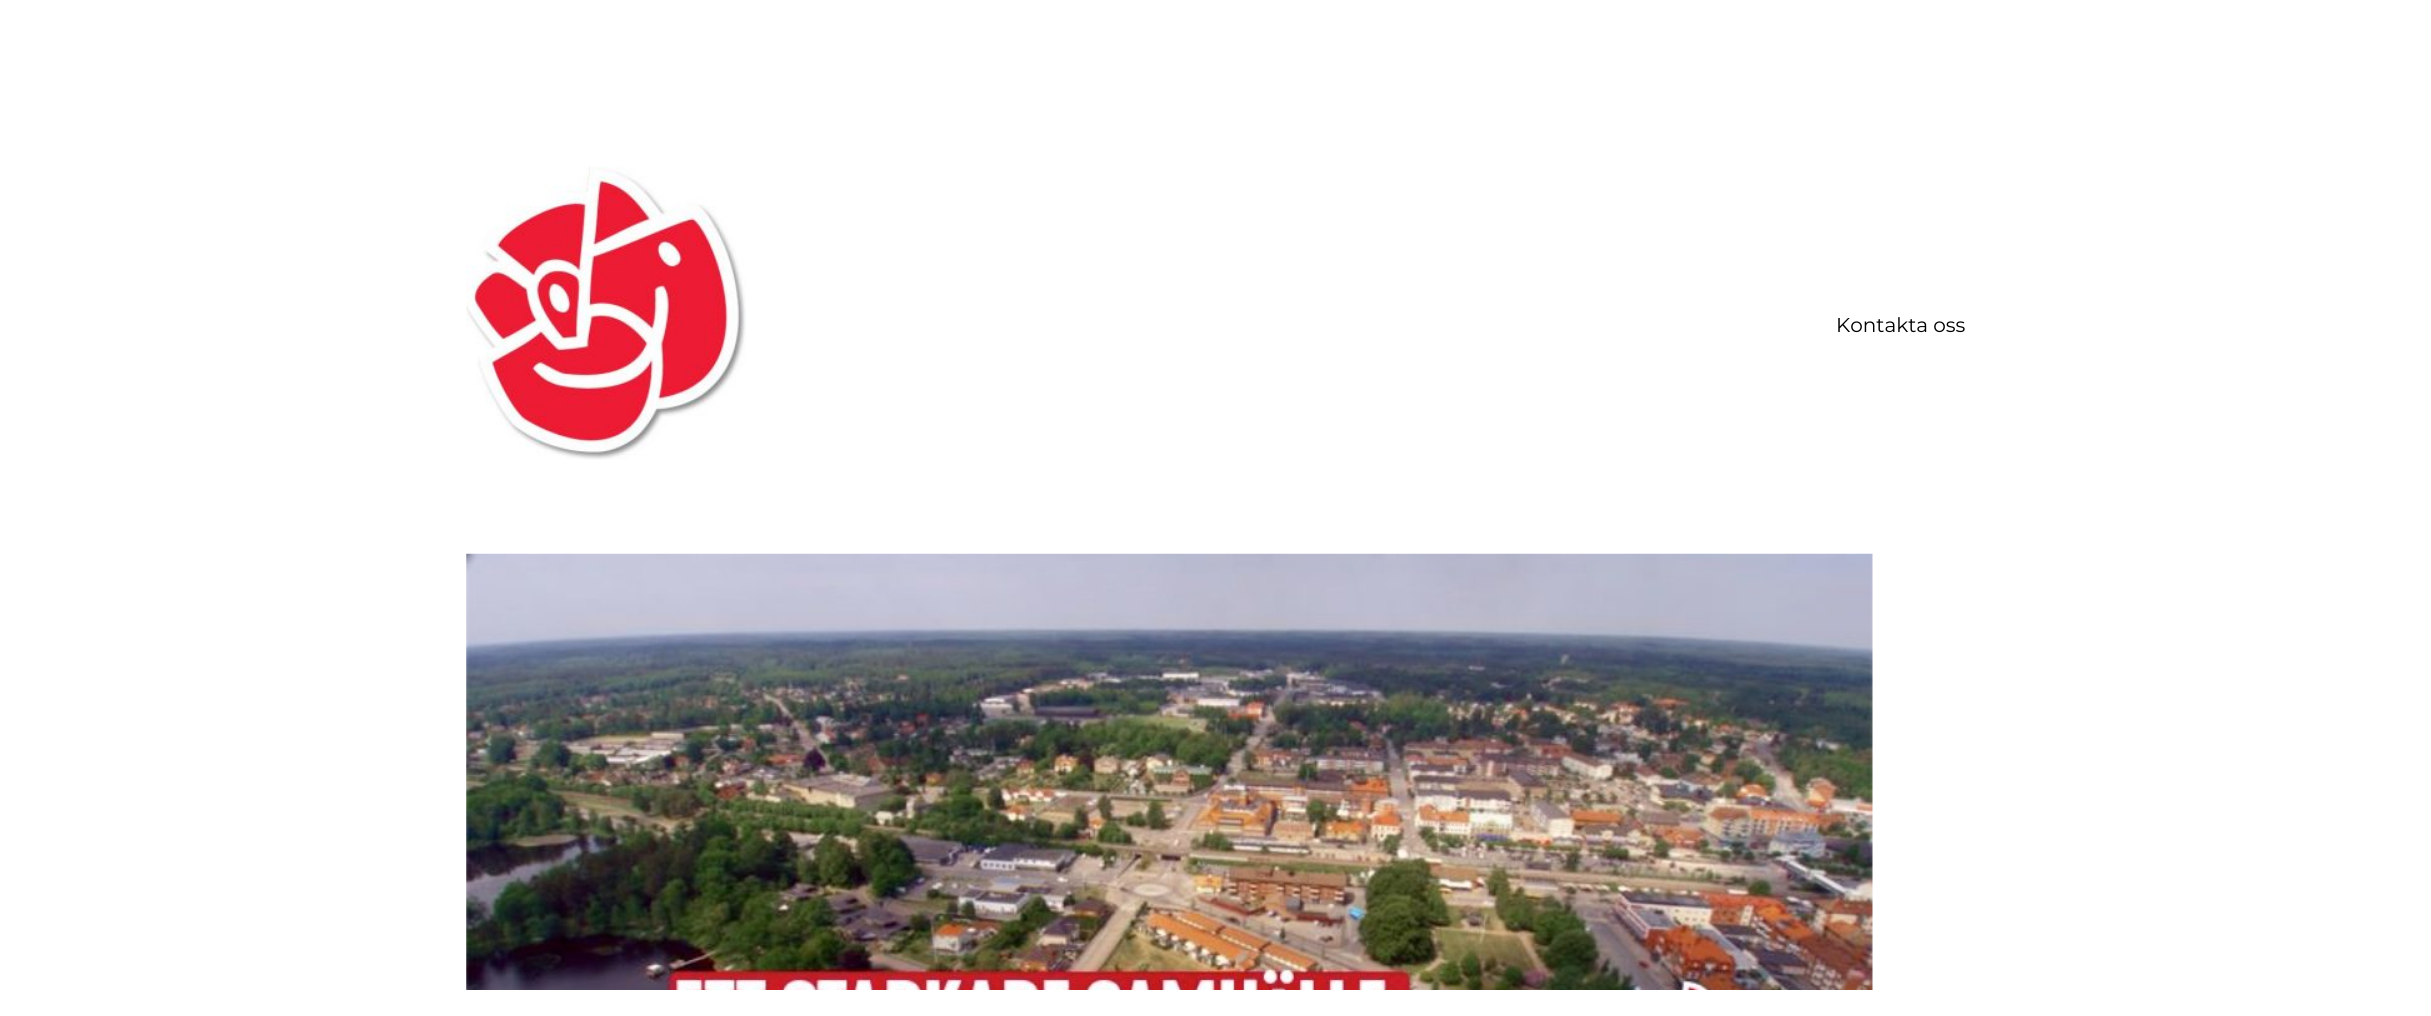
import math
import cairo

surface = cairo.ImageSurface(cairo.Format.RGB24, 2431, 1016)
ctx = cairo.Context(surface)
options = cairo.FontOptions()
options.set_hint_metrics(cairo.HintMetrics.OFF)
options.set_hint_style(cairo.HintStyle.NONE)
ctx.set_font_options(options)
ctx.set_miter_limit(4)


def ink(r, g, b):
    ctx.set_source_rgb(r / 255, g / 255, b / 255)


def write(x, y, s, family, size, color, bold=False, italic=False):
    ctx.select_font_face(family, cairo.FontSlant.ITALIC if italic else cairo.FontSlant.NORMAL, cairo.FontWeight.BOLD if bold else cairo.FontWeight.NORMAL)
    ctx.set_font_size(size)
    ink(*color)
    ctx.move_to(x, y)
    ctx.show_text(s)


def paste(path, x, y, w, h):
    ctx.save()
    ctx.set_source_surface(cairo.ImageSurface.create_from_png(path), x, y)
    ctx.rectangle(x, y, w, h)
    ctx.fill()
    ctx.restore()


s1 = dict(family="Montserrat", size=20, color=(0, 0, 0))

ink(255, 255, 255)
ctx.paint()
paste("pic1.png", 466, 166, 280, 294)
write(1836, 332, "Kontakta oss", **s1)
paste("pic2.png", 466, 553, 1407, 437)
surface.write_to_png("screenshot.png")
